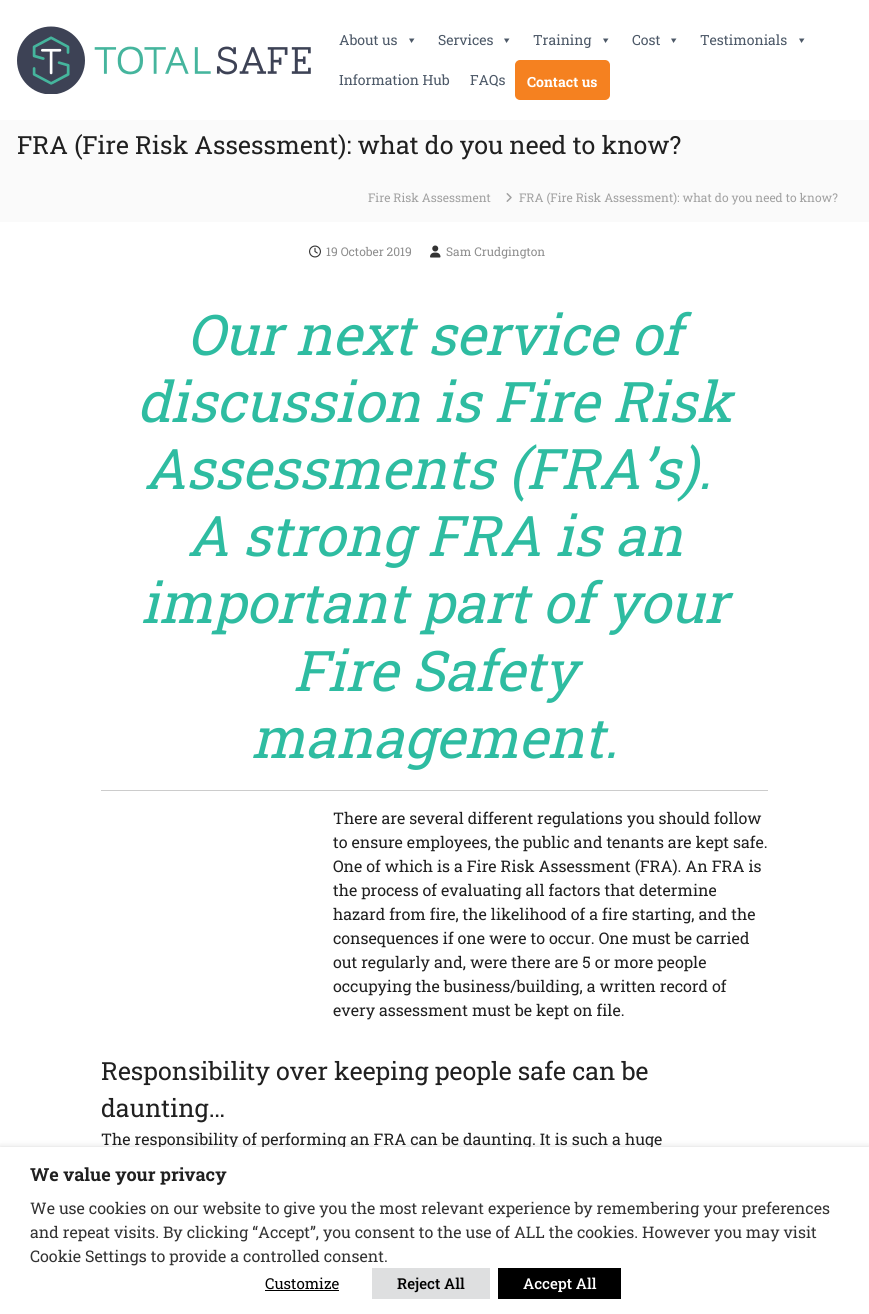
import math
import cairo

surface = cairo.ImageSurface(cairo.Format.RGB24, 869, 1314)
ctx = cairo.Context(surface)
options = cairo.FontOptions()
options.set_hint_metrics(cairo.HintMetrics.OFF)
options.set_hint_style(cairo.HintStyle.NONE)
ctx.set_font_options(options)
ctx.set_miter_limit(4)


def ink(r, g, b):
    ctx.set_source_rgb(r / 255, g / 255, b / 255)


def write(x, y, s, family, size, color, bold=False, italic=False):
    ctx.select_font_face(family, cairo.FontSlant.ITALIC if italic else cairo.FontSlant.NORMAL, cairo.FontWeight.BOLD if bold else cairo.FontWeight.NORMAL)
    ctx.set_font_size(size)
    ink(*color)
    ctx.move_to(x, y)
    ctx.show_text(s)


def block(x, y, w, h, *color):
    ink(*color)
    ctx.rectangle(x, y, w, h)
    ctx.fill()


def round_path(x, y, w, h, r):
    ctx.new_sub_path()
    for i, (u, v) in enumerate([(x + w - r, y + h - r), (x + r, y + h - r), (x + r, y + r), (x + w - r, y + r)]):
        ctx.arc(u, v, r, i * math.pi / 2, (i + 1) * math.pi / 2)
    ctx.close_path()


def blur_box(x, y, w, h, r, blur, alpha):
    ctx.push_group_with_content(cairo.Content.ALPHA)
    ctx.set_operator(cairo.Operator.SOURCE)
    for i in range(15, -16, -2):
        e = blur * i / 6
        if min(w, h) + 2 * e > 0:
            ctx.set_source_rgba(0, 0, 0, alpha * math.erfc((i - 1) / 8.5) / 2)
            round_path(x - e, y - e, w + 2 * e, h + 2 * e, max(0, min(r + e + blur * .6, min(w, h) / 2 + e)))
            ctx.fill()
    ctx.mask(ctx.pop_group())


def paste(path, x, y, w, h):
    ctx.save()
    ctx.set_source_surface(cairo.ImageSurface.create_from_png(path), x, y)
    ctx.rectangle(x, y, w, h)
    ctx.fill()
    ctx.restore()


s1 = dict(family="Roboto Slab", size=14, color=(76, 88, 103))
s2 = dict(family="Roboto Slab", size=14, color=(255, 255, 255), bold=True)
s3 = dict(family="Roboto Slab", size=25, color=(32, 32, 32))
s4 = dict(family="Roboto Slab", size=12, color=(161, 161, 161))
s5 = dict(family="Roboto Slab", size=12, color=(142, 142, 142))
s6 = dict(family="Roboto Slab", size=56, color=(46, 188, 161), italic=True)
s7 = dict(family="Roboto Slab", size=16, color=(32, 32, 32))
s8 = dict(family="Roboto Slab", size=18, color=(32, 32, 32), bold=True)
s9 = dict(family="Roboto Slab", size=16, color=(51, 51, 51))
s10 = dict(family="Roboto Slab", size=15, color=(0, 0, 0))
s11 = dict(family="Roboto Slab Medium", size=15, color=(0, 0, 0))
s12 = dict(family="Roboto Slab Medium", size=15, color=(255, 255, 255))

ink(255, 255, 255)
ctx.paint()
paste("pic1.png", 17, 26, 294, 68)
write(339, 45, "About us", **s1)
ctx.new_path()
ctx.move_to(414.5, 38.5)
ctx.line_to(411.5, 43)
ctx.line_to(409, 38.5)
ctx.close_path()
ctx.fill()
write(438, 45, "Services", **s1)
ctx.new_path()
ctx.move_to(509.5, 38.5)
ctx.line_to(506.5, 43)
ctx.line_to(504, 38.5)
ctx.close_path()
ctx.fill()
write(533, 45, "Training", **s1)
ctx.new_path()
ctx.move_to(608.5, 38.5)
ctx.line_to(605.5, 43)
ctx.line_to(603, 38.5)
ctx.close_path()
ctx.fill()
write(632, 45, "Cost", **s1)
ctx.new_path()
ctx.move_to(676.5, 38.5)
ctx.line_to(673.5, 43)
ctx.line_to(671, 38.5)
ctx.close_path()
ctx.fill()
write(700, 45, "Testimonials", **s1)
ctx.new_path()
ctx.move_to(804.5, 38.5)
ctx.line_to(801.5, 43)
ctx.line_to(799, 38.5)
ctx.close_path()
ctx.fill()
write(339, 85, "Information Hub", **s1)
write(470, 85, "FAQs", **s1)
ink(245, 129, 32)
round_path(516, 61, 93, 38, 4)
ctx.fill_preserve()
ctx.stroke()
write(527, 87, "Contact us", **s2)
block(0, 120, 869, 102, 250, 250, 250)
write(17, 154, "FRA (Fire Risk Assessment): what do you need to know?", **s3)
write(368, 202, "Fire Risk Assessment", **s4)
paste("pic2.png", 506, 193, 6, 9)
write(519, 202, "FRA (Fire Risk Assessment): what do you need to know?", **s4)
paste("pic3.png", 309, 245, 12, 13)
write(326, 256, "19 October 2019", **s5)
paste("pic4.png", 430, 245, 11, 13)
write(446, 256, "Sam Crudgington", **s5)
write(187, 355, "Our next service of", **s6)
write(137, 422, "discussion is Fire Risk", **s6)
write(144, 489, "Assessments (FRA’s).", **s6)
write(187, 556, "A strong FRA is an", **s6)
write(141, 623, "important part of your", **s6)
write(293, 691, "Fire Safety", **s6)
write(251, 758, "management.", **s6)
block(101, 790, 667, 1, 204, 204, 204)
write(333, 824, "There are several different regulations you should follow", **s7)
write(333, 848, "to ensure employees, the public and tenants are kept safe.", **s7)
write(333, 872, "One of which is a Fire Risk Assessment (FRA). An FRA is", **s7)
write(333, 896, "the process of evaluating all factors that determine", **s7)
write(333, 920, "hazard from fire, the likelihood of a fire starting, and the", **s7)
write(333, 944, "consequences if one were to occur. One must be carried", **s7)
write(333, 968, "out regularly and, were there are 5 or more people", **s7)
write(333, 992, "occupying the business/building, a written record of", **s7)
write(333, 1016, "every assessment must be kept on file.", **s7)
write(101, 1080, "Responsibility over keeping people safe can be", **s3)
write(101, 1117, "daunting…", **s3)
write(101, 1145, "The responsibility of performing an FRA can be daunting. It is such a huge", **s7)
ink(0, 0, 0)
blur_box(0, 1152, 869, 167, 0, 5, 0.5)
block(0, 1147, 869, 167, 255, 255, 255)
write(30, 1181, "We value your privacy", **s8)
write(30, 1214, "We use cookies on our website to give you the most relevant experience by remembering your preferences", **s9)
write(30, 1238, "and repeat visits. By clicking “Accept”, you consent to the use of ALL the cookies. However you may visit", **s9)
write(30, 1262, "Cookie Settings to provide a controlled consent.", **s9)
write(265, 1289, "Customize", **s10)
block(265, 1290, 74, 1, 0, 0, 0)
block(372, 1268, 118, 31, 222, 223, 224)
write(397, 1289, "Reject All", **s11)
block(498, 1268, 123, 31, 0, 0, 0)
write(523, 1289, "Accept All", **s12)
surface.write_to_png("screenshot.png")
